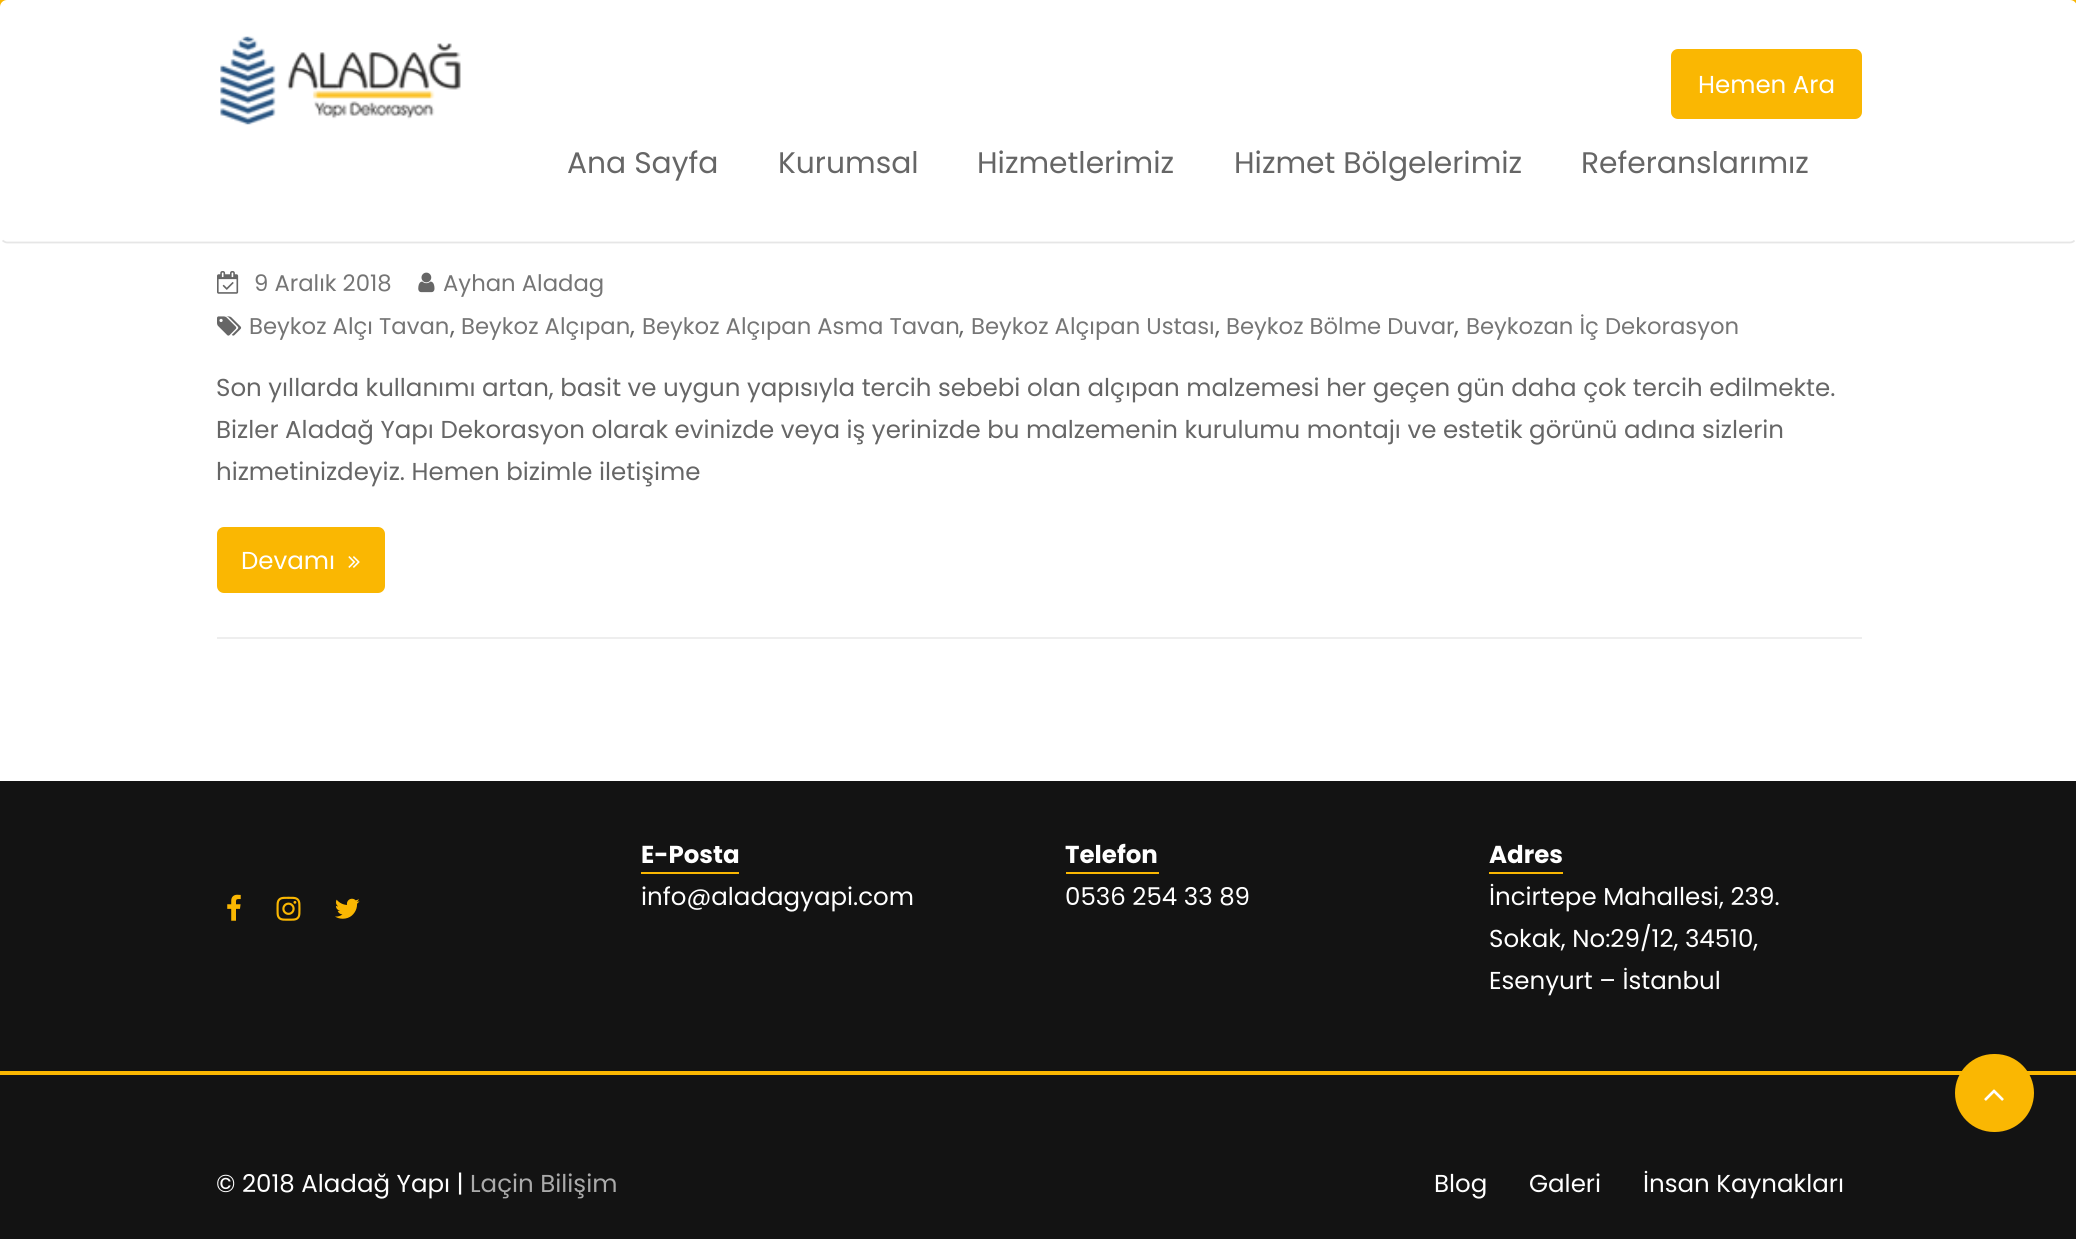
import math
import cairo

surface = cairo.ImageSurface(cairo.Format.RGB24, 2076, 1239)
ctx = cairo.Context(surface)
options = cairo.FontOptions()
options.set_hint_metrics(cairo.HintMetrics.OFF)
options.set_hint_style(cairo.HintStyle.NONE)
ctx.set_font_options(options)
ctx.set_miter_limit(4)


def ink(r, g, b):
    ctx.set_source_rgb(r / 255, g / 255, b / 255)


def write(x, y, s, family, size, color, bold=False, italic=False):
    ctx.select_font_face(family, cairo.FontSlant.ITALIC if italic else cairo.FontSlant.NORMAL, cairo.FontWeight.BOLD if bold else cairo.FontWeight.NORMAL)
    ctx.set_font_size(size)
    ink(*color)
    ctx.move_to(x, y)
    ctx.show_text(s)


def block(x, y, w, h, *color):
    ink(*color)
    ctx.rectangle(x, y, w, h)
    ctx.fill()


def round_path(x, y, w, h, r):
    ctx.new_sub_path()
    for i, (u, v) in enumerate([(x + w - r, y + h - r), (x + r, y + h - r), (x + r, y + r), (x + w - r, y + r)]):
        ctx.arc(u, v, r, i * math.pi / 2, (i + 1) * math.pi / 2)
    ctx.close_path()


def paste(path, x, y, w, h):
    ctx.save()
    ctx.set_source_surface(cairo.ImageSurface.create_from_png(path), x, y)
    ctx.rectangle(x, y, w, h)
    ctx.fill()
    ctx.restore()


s1 = dict(family="Poppins", size=24.5, color=(255, 255, 255))
s2 = dict(family="Poppins", size=29.75, color=(102, 102, 102))
s3 = dict(family="Poppins", size=22.75, color=(117, 117, 117))
s4 = dict(family="Poppins", size=24.5, color=(102, 102, 102))
s5 = dict(family="Poppins", size=24.5, color=(255, 255, 255), bold=True)
s6 = dict(family="Poppins", size=24.5, color=(170, 170, 170))

ink(255, 255, 255)
ctx.paint()
block(0, 0, 2076, 7, 248, 181, 2)
ink(255, 255, 255)
round_path(0, 0, 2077, 243, 7)
ctx.fill()
ctx.new_path()
ctx.move_to(2074.5, 240.5)
ctx.curve_to(2073.5, 241.5, 2072, 242.5, 2070, 242.5)
ctx.line_to(7, 242.5)
ctx.curve_to(5.5, 242.5, 4, 241.5, 2.5, 240.5)
ink(230, 230, 230)
ctx.set_line_width(1.8)
ctx.stroke()
paste("pic1.png", 220, 36, 241, 89)
ink(250, 183, 2)
round_path(1671, 49, 191, 70, 7)
ctx.fill()
write(1698, 93, "Hemen Ara", **s1)
write(567, 173, "Ana Sayfa", **s2)
write(778, 173, "Kurumsal", **s2)
write(977, 173, "Hizmetlerimiz", **s2)
write(1234, 173, "Hizmet Bölgelerimiz", **s2)
write(1581, 173, "Referanslarımız", **s2)
block(217, 637, 1645, 2, 238, 238, 238)
paste("pic2.png", 217, 271, 22, 23)
write(254, 291, "9 Aralık 2018", **s3)
paste("pic3.png", 418, 272, 17, 21)
write(443, 291, "Ayhan Aladag", **s3)
paste("pic4.png", 217, 316, 25, 20)
write(249, 334, "Beykoz Alçı Tavan", **s3)
write(450, 334, ",", **s4)
write(461, 334, "Beykoz Alçıpan", **s3)
write(630, 334, ",", **s4)
write(642, 334, "Beykoz Alçıpan Asma Tavan", **s3)
write(959, 334, ",", **s4)
write(971, 334, "Beykoz Alçıpan Ustası", **s3)
write(1215, 334, ",", **s4)
write(1226, 334, "Beykoz Bölme Duvar", **s3)
write(1454, 334, ",", **s4)
write(1466, 334, "Beykozan İç Dekorasyon", **s3)
write(216, 396, "Son yıllarda kullanımı artan, basit ve uygun yapısıyla tercih sebebi olan alçıpan malzemesi her geçen gün daha çok tercih edilmekte.", **s4)
write(216, 438, "Bizler Aladağ Yapı Dekorasyon olarak evinizde veya iş yerinizde bu malzemenin kurulumu montajı ve estetik görünü adına sizlerin", **s4)
write(216, 480, "hizmetinizdeyiz. Hemen bizimle iletişime", **s4)
ink(250, 183, 2)
round_path(217, 527, 168, 66, 7)
ctx.fill()
write(241, 569, "Devamı", **s1)
paste("pic5.png", 348, 556, 12, 12)
block(0, 781, 2076, 458, 19, 19, 19)
block(0, 1071, 2076, 4, 250, 183, 2)
paste("pic6.png", 227, 894, 14, 27)
paste("pic7.png", 276, 896, 25, 25)
paste("pic8.png", 335, 898, 25, 21)
write(641, 863, "E-Posta", **s5)
block(641, 872, 98, 2, 250, 183, 2)
write(641, 905, "info@aladagyapi.com", **s1)
write(1065, 863, "Telefon", **s5)
block(1066, 872, 93, 2, 250, 183, 2)
write(1065, 905, "0536 254 33 89", **s1)
write(1489, 863, "Adres", **s5)
block(1489, 872, 74, 2, 250, 183, 2)
write(1489, 905, "İncirtepe Mahallesi, 239.", **s1)
write(1489, 947, "Sokak, No:29/12, 34510,", **s1)
write(1489, 989, "Esenyurt – İstanbul", **s1)
ink(250, 183, 2)
round_path(1955, 1054, 79, 78, 39)
ctx.fill()
paste("pic9.png", 1984, 1089, 20, 12)
write(216, 1192, "© 2018 Aladağ Yapı |", **s1)
write(470, 1192, "Laçin Bilişim", **s6)
write(1434, 1192, "Blog", **s1)
write(1529, 1192, "Galeri", **s1)
write(1643, 1192, "İnsan Kaynakları", **s1)
surface.write_to_png("screenshot.png")
